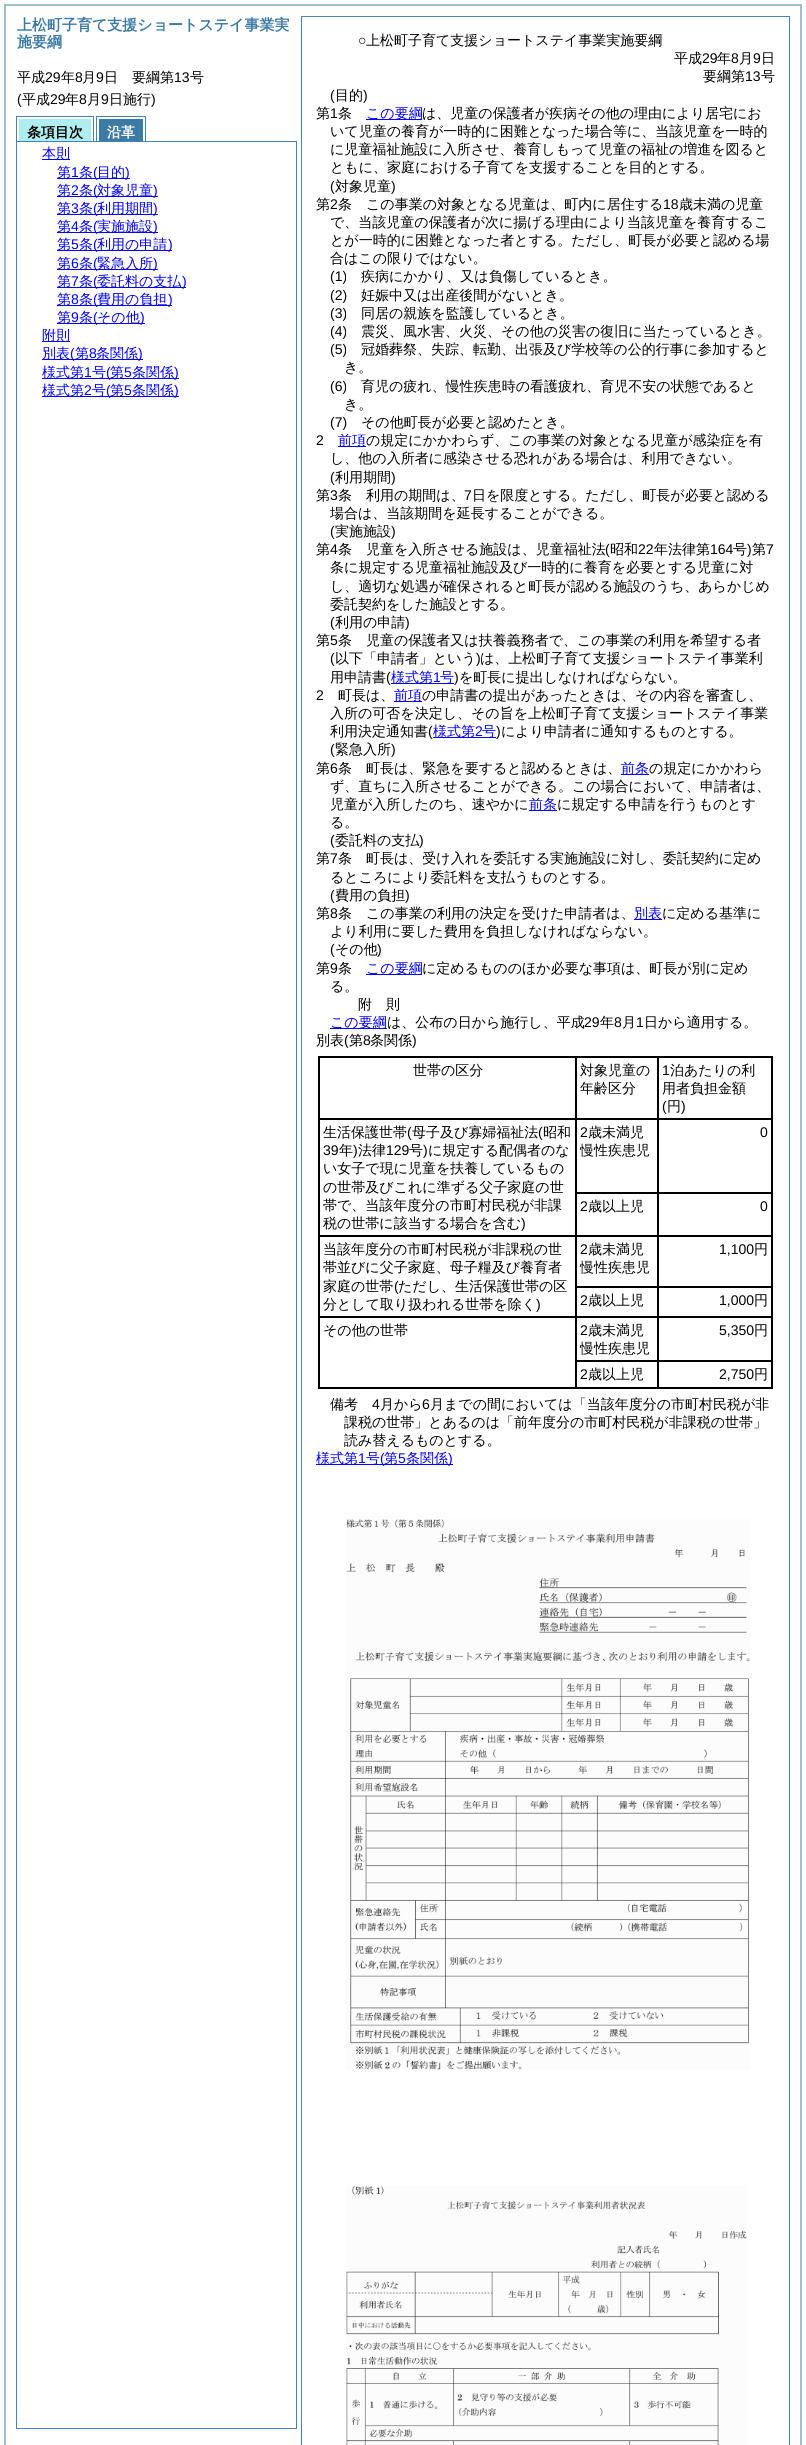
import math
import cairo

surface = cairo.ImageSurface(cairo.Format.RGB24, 806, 2445)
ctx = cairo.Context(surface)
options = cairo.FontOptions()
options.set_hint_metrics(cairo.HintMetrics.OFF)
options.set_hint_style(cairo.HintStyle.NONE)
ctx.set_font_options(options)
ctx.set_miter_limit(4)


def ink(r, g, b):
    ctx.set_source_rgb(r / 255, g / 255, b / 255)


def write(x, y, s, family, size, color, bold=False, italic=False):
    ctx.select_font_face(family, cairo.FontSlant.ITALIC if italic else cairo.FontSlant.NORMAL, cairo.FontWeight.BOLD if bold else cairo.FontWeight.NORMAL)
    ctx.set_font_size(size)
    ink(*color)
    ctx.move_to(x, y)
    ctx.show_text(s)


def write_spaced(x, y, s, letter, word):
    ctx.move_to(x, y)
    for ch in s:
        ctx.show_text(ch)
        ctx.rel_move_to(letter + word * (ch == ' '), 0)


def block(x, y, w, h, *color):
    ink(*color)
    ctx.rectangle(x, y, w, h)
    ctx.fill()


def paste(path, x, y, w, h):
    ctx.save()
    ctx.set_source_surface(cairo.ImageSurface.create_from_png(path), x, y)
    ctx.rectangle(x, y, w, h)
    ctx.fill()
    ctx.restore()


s1 = dict(family="WenQuanYi Zen Hei", size=15, color=(61, 122, 164), bold=True)
s2 = dict(family="WenQuanYi Zen Hei Medium", size=14, color=(0, 0, 0))
s3 = dict(family="Liberation Sans", size=14, color=(0, 0, 0))
s4 = dict(family="WenQuanYi Zen Hei", size=14, color=(0, 0, 0), bold=True)
s5 = dict(family="WenQuanYi Zen Hei", size=14, color=(255, 255, 255), bold=True)
s6 = dict(family="WenQuanYi Zen Hei Medium", size=14, color=(0, 0, 255))
s7 = dict(family="Liberation Sans", size=14, color=(0, 0, 255))

ink(255, 255, 255)
ctx.paint()
ctx.rectangle(5, 5, 796, 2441)
ink(160, 191, 204)
ctx.stroke()
write(17, 30, "上松町子育て支援ショートステイ事業実", **s1)
write(17, 47, "施要綱", **s1)
write(17, 82, "平成", **s2)
write(45, 82, "29", **s3)
write(61, 82, "年", **s2)
write(75, 82, "8", **s3)
write(82, 82, "月", **s2)
write(96, 82, "9", **s3)
write(104, 82, "日　要綱第", **s2)
write(174, 82, "13", **s3)
write(190, 82, "号", **s2)
write(17, 104, "(", **s3)
write(22, 104, "平成", **s2)
write(50, 104, "29", **s3)
write(65, 104, "年", **s2)
write(79, 104, "8", **s3)
write(87, 104, "月", **s2)
write(101, 104, "9", **s3)
write(109, 104, "日施行", **s2)
write(151, 104, ")", **s3)
block(16, 116, 78, 1, 70, 130, 180)
block(93, 116, 1, 26, 70, 130, 180)
block(16, 116, 1, 26, 70, 130, 180)
block(19, 119, 72, 22, 175, 238, 238)
write(27, 137, "条項目次", **s4)
block(96, 116, 50, 1, 70, 130, 180)
block(145, 116, 1, 26, 70, 130, 180)
block(96, 116, 1, 26, 70, 130, 180)
block(99, 119, 44, 22, 61, 122, 164)
write(107, 137, "沿革", **s5)
ctx.rectangle(16.5, 141.5, 280, 2287)
ink(70, 130, 180)
ctx.set_line_width(1)
ctx.stroke()
block(42, 159, 28, 1, 0, 0, 255)
write(42, 158, "本則", **s6)
block(57, 178, 73, 1, 0, 0, 255)
write(57, 177, "第", **s6)
write(71, 177, "1", **s7)
write(79, 177, "条", **s6)
write(93, 177, "(", **s7)
write(97, 177, "目的", **s6)
write(125, 177, ")", **s7)
block(57, 196, 101, 1, 0, 0, 255)
write(57, 195, "第", **s6)
write(71, 195, "2", **s7)
write(79, 195, "条", **s6)
write(93, 195, "(", **s7)
write(97, 195, "対象児童", **s6)
write(153, 195, ")", **s7)
block(57, 214, 101, 1, 0, 0, 255)
write(57, 213, "第", **s6)
write(71, 213, "3", **s7)
write(79, 213, "条", **s6)
write(93, 213, "(", **s7)
write(97, 213, "利用期間", **s6)
write(153, 213, ")", **s7)
block(57, 232, 101, 1, 0, 0, 255)
write(57, 231, "第", **s6)
write(71, 231, "4", **s7)
write(79, 231, "条", **s6)
write(93, 231, "(", **s7)
write(97, 231, "実施施設", **s6)
write(153, 231, ")", **s7)
block(57, 250, 115, 1, 0, 0, 255)
write(57, 249, "第", **s6)
write(71, 249, "5", **s7)
write(79, 249, "条", **s6)
write(93, 249, "(", **s7)
write(97, 249, "利用の申請", **s6)
write(168, 249, ")", **s7)
block(57, 269, 101, 1, 0, 0, 255)
write(57, 268, "第", **s6)
write(71, 268, "6", **s7)
write(79, 268, "条", **s6)
write(93, 268, "(", **s7)
write(97, 268, "緊急入所", **s6)
write(153, 268, ")", **s7)
block(57, 287, 129, 1, 0, 0, 255)
write(57, 286, "第", **s6)
write(71, 286, "7", **s7)
write(79, 286, "条", **s6)
write(93, 286, "(", **s7)
write(97, 286, "委託料の支払", **s6)
write(182, 286, ")", **s7)
block(57, 305, 115, 1, 0, 0, 255)
write(57, 304, "第", **s6)
write(71, 304, "8", **s7)
write(79, 304, "条", **s6)
write(93, 304, "(", **s7)
write(97, 304, "費用の負担", **s6)
write(168, 304, ")", **s7)
block(57, 323, 88, 1, 0, 0, 255)
write(57, 322, "第", **s6)
write(71, 322, "9", **s7)
write(79, 322, "条", **s6)
write(93, 322, "(", **s7)
write(97, 322, "その他", **s6)
write(140, 322, ")", **s7)
block(42, 341, 28, 1, 0, 0, 255)
write(42, 340, "附則", **s6)
block(42, 359, 101, 1, 0, 0, 255)
write(42, 358, "別表", **s6)
write(70, 358, "(", **s7)
write(75, 358, "第", **s6)
write(89, 358, "8", **s7)
write(96, 358, "条関係", **s6)
write(138, 358, ")", **s7)
block(42, 378, 137, 1, 0, 0, 255)
write(42, 377, "様式第", **s6)
write(84, 377, "1", **s7)
write(92, 377, "号", **s6)
write(106, 377, "(", **s7)
write(110, 377, "第", **s6)
write(124, 377, "5", **s7)
write(132, 377, "条関係", **s6)
write(174, 377, ")", **s7)
block(42, 396, 137, 1, 0, 0, 255)
write(42, 395, "様式第", **s6)
write(84, 395, "2", **s7)
write(92, 395, "号", **s6)
write(106, 395, "(", **s7)
write(110, 395, "第", **s6)
write(124, 395, "5", **s7)
write(132, 395, "条関係", **s6)
write(174, 395, ")", **s7)
ctx.rectangle(301.5, 16.5, 488, 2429)
ink(70, 130, 180)
ctx.stroke()
write(358, 45, "○", **s3)
write(366, 45, "上松町子育て支援ショートステイ事業実施要綱", **s2)
write(674, 63, "平成", **s2)
write(702, 63, "29", **s3)
write(717, 63, "年", **s2)
write(731, 63, "8", **s3)
write(739, 63, "月", **s2)
write(753, 63, "9", **s3)
write(761, 63, "日", **s2)
write(703, 81, "要綱第", **s2)
write(745, 81, "13", **s3)
write(761, 81, "号", **s2)
write(330, 100, "(", **s3)
write(335, 100, "目的", **s2)
write(363, 100, ")", **s3)
write(316, 118, "第", **s2)
write(330, 118, "1", **s3)
write(338, 118, "条", **s2)
block(366, 119, 56, 1, 0, 0, 255)
write(366, 118, "この要綱", **s6)
write(422, 118, "は、児童の保護者が疾病その他の理由により居宅にお", **s2)
write(330, 136, "いて児童の養育が一時的に困難となった場合等に、当該児童を一時的", **s2)
write(330, 154, "に児童福祉施設に入所させ、養育しもって児童の福祉の増進を図ると", **s2)
write(330, 172, "ともに、家庭における子育てを支援することを目的とする。", **s2)
write(330, 191, "(", **s3)
write(335, 191, "対象児童", **s2)
write(391, 191, ")", **s3)
write(316, 209, "第", **s2)
write(330, 209, "2", **s3)
write(338, 209, "条", **s2)
write(366, 209, "この事業の対象となる児童は、町内に居住する", **s2)
write(663, 209, "18", **s3)
write(679, 209, "歳未満の児童", **s2)
write(330, 227, "で、当該児童の保護者が次に揚げる理由により当該児童を養育するこ", **s2)
write(330, 245, "とが一時的に困難となった者とする。ただし、町長が必要と認める場", **s2)
write(330, 263, "合はこの限りではない。", **s2)
write(330, 281, "(1)", **s3)
write(361, 281, "疾病にかかり、又は負傷しているとき。", **s2)
write(330, 300, "(2)", **s3)
write(361, 300, "妊娠中又は出産後間がないとき。", **s2)
write(330, 318, "(3)", **s3)
write(361, 318, "同居の親族を監護しているとき。", **s2)
write(330, 336, "(4)", **s3)
write(361, 336, "震災、風水害、火災、その他の災害の復旧に当たっているとき。", **s2)
write(330, 354, "(5)", **s3)
write(361, 354, "冠婚葬祭、失踪、転勤、出張及び学校等の公的行事に参加すると", **s2)
write(344, 372, "き。", **s2)
write(330, 391, "(6)", **s3)
write(361, 391, "育児の疲れ、慢性疾患時の看護疲れ、育児不安の状態であると", **s2)
write(344, 409, "き。", **s2)
write(330, 427, "(7)", **s3)
write(361, 427, "その他町長が必要と認めたとき。", **s2)
write(316, 445, "2", **s3)
block(338, 446, 28, 1, 0, 0, 255)
write(338, 445, "前項", **s6)
write(366, 445, "の規定にかかわらず、この事業の対象となる児童が感染症を有", **s2)
write(330, 463, "し、他の入所者に感染させる恐れがある場合は、利用できない。", **s2)
write(330, 482, "(", **s3)
write(335, 482, "利用期間", **s2)
write(391, 482, ")", **s3)
write(316, 500, "第", **s2)
write(330, 500, "3", **s3)
write(338, 500, "条", **s2)
write(366, 500, "利用の期間は、", **s2)
write(464, 500, "7", **s3)
write(472, 500, "日を限度とする。ただし、町長が必要と認める", **s2)
write(330, 518, "場合は、当該期間を延長することができる。", **s2)
write(330, 536, "(", **s3)
write(335, 536, "実施施設", **s2)
write(391, 536, ")", **s3)
write(316, 554, "第", **s2)
write(330, 554, "4", **s3)
write(338, 554, "条", **s2)
write(366, 554, "児童を入所させる施設は、児童福祉法", **s2)
write(605, 554, "(", **s3)
write(610, 554, "昭和", **s2)
write(638, 554, "22", **s3)
write(654, 554, "年法律第", **s2)
write(710, 554, "164", **s3)
write(733, 554, "号", **s2)
write(747, 554, ")", **s3)
write(752, 554, "第", **s2)
write(766, 554, "7", **s3)
write(330, 572, "条に規定する児童福祉施設及び一時的に養育を必要とする児童に対", **s2)
write(330, 591, "し、適切な処遇が確保されると町長が認める施設のうち、あらかじめ", **s2)
write(330, 609, "委託契約をした施設とする。", **s2)
write(330, 627, "(", **s3)
write(335, 627, "利用の申請", **s2)
write(405, 627, ")", **s3)
write(316, 645, "第", **s2)
write(330, 645, "5", **s3)
write(338, 645, "条", **s2)
write(366, 645, "児童の保護者又は扶養義務者で、この事業の利用を希望する者", **s2)
write(330, 663, "(", **s3)
write(335, 663, "以下「申請者」という", **s2)
write(476, 663, ")", **s3)
write(480, 663, "は、上松町子育て支援ショートステイ事業利", **s2)
write(330, 682, "用申請書", **s2)
write(386, 682, "(", **s3)
block(391, 683, 63, 1, 0, 0, 255)
write(391, 682, "様式第", **s6)
write(433, 682, "1", **s7)
write(440, 682, "号", **s6)
write(454, 682, ")", **s3)
write(459, 682, "を町長に提出しなければならない。", **s2)
write(316, 700, "2", **s3)
write(338, 700, "町長は、", **s2)
block(394, 701, 28, 1, 0, 0, 255)
write(394, 700, "前項", **s6)
write(422, 700, "の申請書の提出があったときは、その内容を審査し、", **s2)
write(330, 718, "入所の可否を決定し、その旨を上松町子育て支援ショートステイ事業", **s2)
write(330, 736, "利用決定通知書", **s2)
write(428, 736, "(", **s3)
block(433, 737, 63, 1, 0, 0, 255)
write(433, 736, "様式第", **s6)
write(475, 736, "2", **s7)
write(482, 736, "号", **s6)
write(496, 736, ")", **s3)
write(501, 736, "により申請者に通知するものとする。", **s2)
write(330, 754, "(", **s3)
write(335, 754, "緊急入所", **s2)
write(391, 754, ")", **s3)
write(316, 773, "第", **s2)
write(330, 773, "6", **s3)
write(338, 773, "条", **s2)
write(366, 773, "町長は、緊急を要すると認めるときは、", **s2)
block(621, 774, 28, 1, 0, 0, 255)
write(621, 773, "前条", **s6)
write(649, 773, "の規定にかかわら", **s2)
write(330, 791, "ず、直ちに入所させることができる。この場合において、申請者は、", **s2)
write(330, 809, "児童が入所したのち、速やかに", **s2)
block(529, 810, 28, 1, 0, 0, 255)
write(529, 809, "前条", **s6)
write(557, 809, "に規定する申請を行うものとす", **s2)
write(330, 827, "る。", **s2)
write(330, 845, "(", **s3)
write(335, 845, "委託料の支払", **s2)
write(419, 845, ")", **s3)
write(316, 863, "第", **s2)
write(330, 863, "7", **s3)
write(338, 863, "条", **s2)
write(366, 863, "町長は、受け入れを委託する実施施設に対し、委託契約に定め", **s2)
write(330, 882, "るところにより委託料を支払うものとする。", **s2)
write(330, 900, "(", **s3)
write(335, 900, "費用の負担", **s2)
write(405, 900, ")", **s3)
write(316, 918, "第", **s2)
write(330, 918, "8", **s3)
write(338, 918, "条", **s2)
write(366, 918, "この事業の利用の決定を受けた申請者は、", **s2)
block(634, 919, 28, 1, 0, 0, 255)
write(634, 918, "別表", **s6)
write(662, 918, "に定める基準に", **s2)
write(330, 936, "より利用に要した費用を負担しなければならない。", **s2)
write(330, 954, "(", **s3)
write(335, 954, "その他", **s2)
write(377, 954, ")", **s3)
write(316, 973, "第", **s2)
write(330, 973, "9", **s3)
write(338, 973, "条", **s2)
block(366, 974, 56, 1, 0, 0, 255)
write(366, 973, "この要綱", **s6)
write(422, 973, "に定めるもののほか必要な事項は、町長が別に定め", **s2)
write(330, 991, "る。", **s2)
write_spaced(358, 1009, "附", 14, 0)
write(386, 1009, "則", **s2)
block(330, 1028, 57, 1, 0, 0, 255)
write(330, 1027, "この要綱", **s6)
write(387, 1027, "は、公布の日から施行し、平成", **s2)
write(584, 1027, "29", **s3)
write(600, 1027, "年", **s2)
write(614, 1027, "8", **s3)
write(622, 1027, "月", **s2)
write(636, 1027, "1", **s3)
write(644, 1027, "日から適用する。", **s2)
write(316, 1045, "別表", **s2)
write(344, 1045, "(", **s3)
write(349, 1045, "第", **s2)
write(363, 1045, "8", **s3)
write(370, 1045, "条関係", **s2)
write(412, 1045, ")", **s3)
ctx.rectangle(319, 1057, 257, 62)
ctx.set_line_width(2)
ctx.stroke()
write(413, 1075, "世帯の区分", **s2)
block(577, 1056, 196, 2, 0, 0, 0)
block(657, 1056, 2, 333, 0, 0, 0)
block(577, 1118, 82, 2, 0, 0, 0)
write(580, 1075, "対象児童の", **s2)
write(580, 1093, "年齢区分", **s2)
block(771, 1056, 2, 333, 0, 0, 0)
block(659, 1118, 114, 2, 0, 0, 0)
write(662, 1075, "1", **s3)
write(670, 1075, "泊あたりの利", **s2)
write(662, 1093, "用者負担金額", **s2)
write(662, 1111, "(", **s3)
write(667, 1111, "円", **s2)
write(681, 1111, ")", **s3)
block(575, 1120, 2, 269, 0, 0, 0)
block(318, 1235, 455, 2, 0, 0, 0)
block(318, 1120, 2, 117, 0, 0, 0)
write(323, 1137, "生活保護世帯", **s2)
write(407, 1137, "(", **s3)
write(412, 1137, "母子及び寡婦福祉法", **s2)
write(538, 1137, "(", **s3)
write(543, 1137, "昭和", **s2)
write(323, 1155, "39", **s3)
write(339, 1155, "年", **s2)
write(353, 1155, ")", **s3)
write(358, 1155, "法律", **s2)
write(386, 1155, "129", **s3)
write(409, 1155, "号", **s2)
write(423, 1155, ")", **s3)
write(428, 1155, "に規定する配偶者のな", **s2)
write(323, 1173, "い女子で現に児童を扶養しているもの", **s2)
write(323, 1192, "の世帯及びこれに準ずる父子家庭の世", **s2)
write(323, 1210, "帯で、当該年度分の市町村民税が非課", **s2)
write(323, 1228, "税の世帯に該当する場合を含む", **s2)
write(521, 1228, ")", **s3)
block(577, 1192, 196, 2, 0, 0, 0)
write(580, 1137, "2", **s3)
write(588, 1137, "歳未満児", **s2)
write(580, 1155, "慢性疾患児", **s2)
write(760, 1137, "0", **s3)
write(580, 1211, "2", **s3)
write(588, 1211, "歳以上児", **s2)
write(760, 1211, "0", **s3)
block(318, 1316, 455, 2, 0, 0, 0)
block(318, 1237, 2, 81, 0, 0, 0)
write(323, 1254, "当該年度分の市町村民税が非課税の世", **s2)
write(323, 1272, "帯並びに父子家庭、母子糧及び養育者", **s2)
write(323, 1291, "家庭の世帯", **s2)
write(394, 1291, "(", **s3)
write(398, 1291, "ただし、生活保護世帯の区", **s2)
write(323, 1309, "分として取り扱われる世帯を除く", **s2)
write(536, 1309, ")", **s3)
block(577, 1286, 196, 2, 0, 0, 0)
write(580, 1254, "2", **s3)
write(588, 1254, "歳未満児", **s2)
write(580, 1272, "慢性疾患児", **s2)
write(719, 1254, "1,100", **s3)
write(754, 1254, "円", **s2)
write(580, 1305, "2", **s3)
write(588, 1305, "歳以上児", **s2)
write(719, 1305, "1,000", **s3)
write(754, 1305, "円", **s2)
block(318, 1387, 455, 2, 0, 0, 0)
block(318, 1318, 2, 71, 0, 0, 0)
write(323, 1335, "その他の世帯", **s2)
block(577, 1360, 196, 2, 0, 0, 0)
write(580, 1335, "2", **s3)
write(588, 1335, "歳未満児", **s2)
write(580, 1353, "慢性疾患児", **s2)
write(719, 1335, "5,350", **s3)
write(754, 1335, "円", **s2)
write(580, 1379, "2", **s3)
write(588, 1379, "歳以上児", **s2)
write(719, 1379, "2,750", **s3)
write(754, 1379, "円", **s2)
write(330, 1409, "備考", **s2)
write(372, 1409, "4", **s3)
write(380, 1409, "月から", **s2)
write(422, 1409, "6", **s3)
write(430, 1409, "月までの間においては「当該年度分の市町村民税が非", **s2)
write(344, 1427, "課税の世帯」とあるのは「前年度分の市町村民税が非課税の世帯」", **s2)
write(344, 1445, "読み替えるものとする。", **s2)
block(316, 1464, 137, 1, 0, 0, 255)
write(316, 1463, "様式第", **s6)
write(358, 1463, "1", **s7)
write(366, 1463, "号", **s6)
write(380, 1463, "(", **s7)
write(384, 1463, "第", **s6)
write(398, 1463, "5", **s7)
write(406, 1463, "条関係", **s6)
write(448, 1463, ")", **s7)
paste("pic1.png", 346, 1519, 404, 551)
paste("pic2.png", 346, 2185, 401, 260)
surface.write_to_png("screenshot.png")
